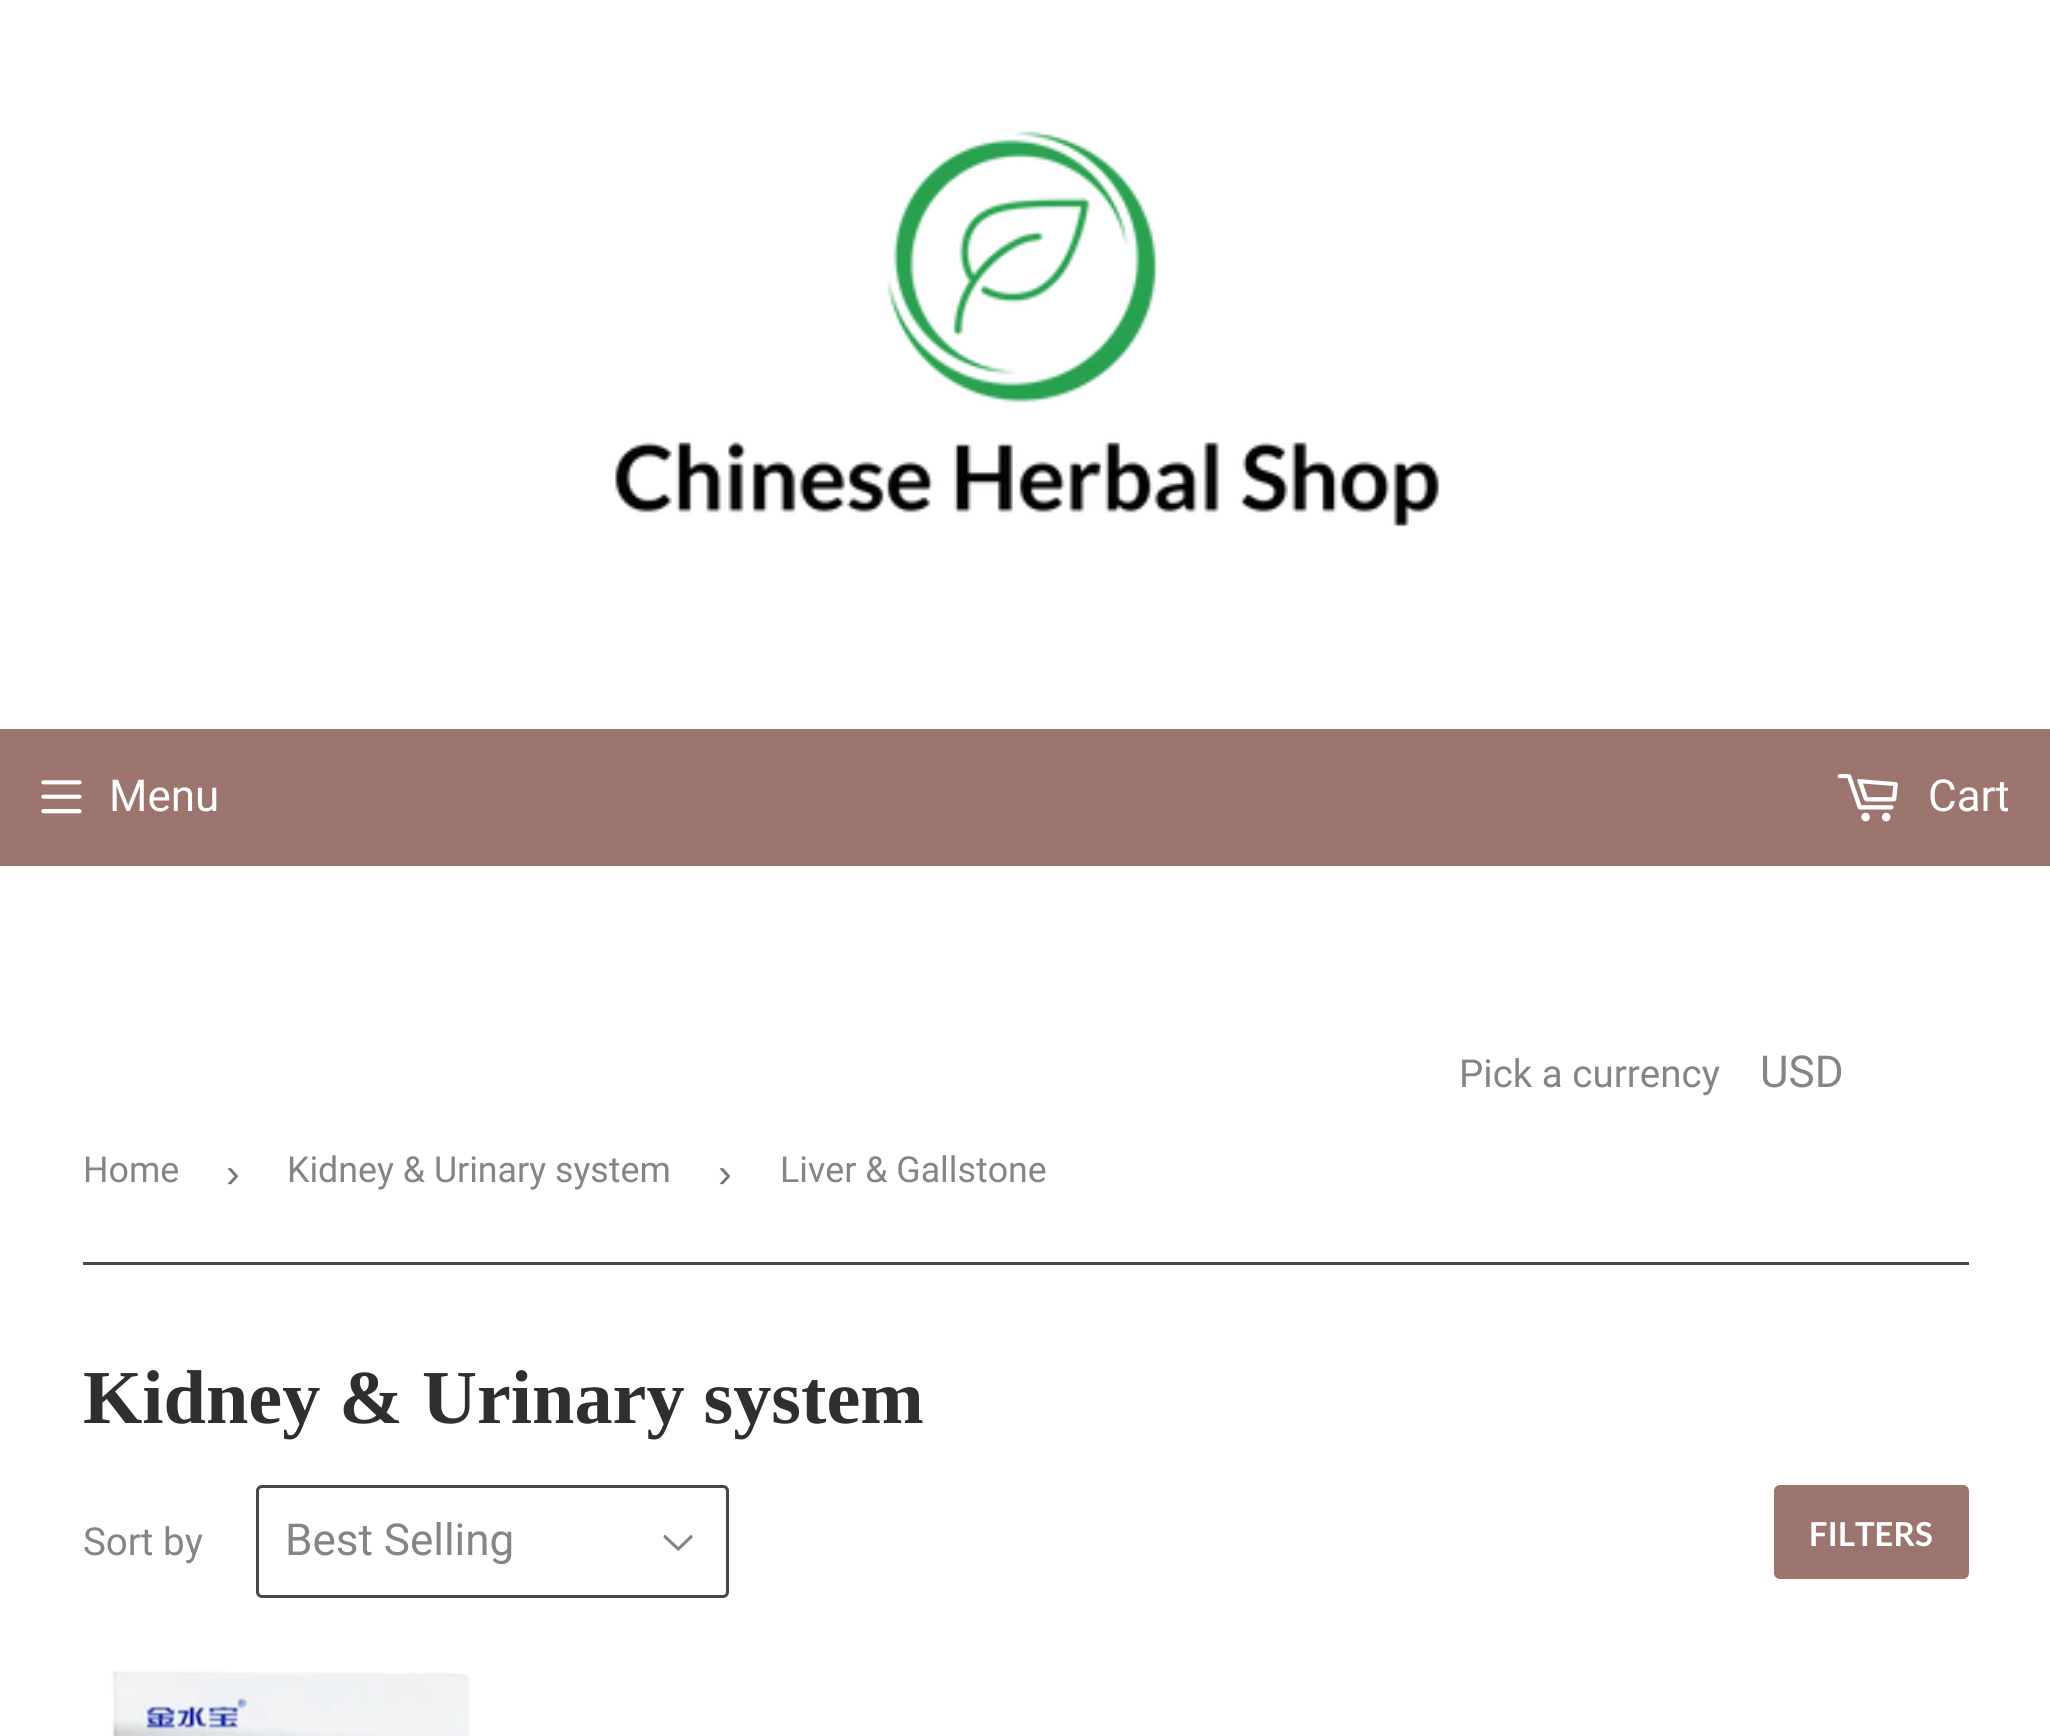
import math
import cairo

surface = cairo.ImageSurface(cairo.Format.RGB24, 2050, 1736)
ctx = cairo.Context(surface)
options = cairo.FontOptions()
options.set_hint_metrics(cairo.HintMetrics.OFF)
options.set_hint_style(cairo.HintStyle.NONE)
ctx.set_font_options(options)
ctx.set_miter_limit(4)


def ink(r, g, b):
    ctx.set_source_rgb(r / 255, g / 255, b / 255)


def write(x, y, s, family, size, color, bold=False, italic=False):
    ctx.select_font_face(family, cairo.FontSlant.ITALIC if italic else cairo.FontSlant.NORMAL, cairo.FontWeight.BOLD if bold else cairo.FontWeight.NORMAL)
    ctx.set_font_size(size)
    ink(*color)
    ctx.move_to(x, y)
    ctx.show_text(s)


def block(x, y, w, h, *color):
    ink(*color)
    ctx.rectangle(x, y, w, h)
    ctx.fill()


def round_path(x, y, w, h, r):
    ctx.new_sub_path()
    for i, (u, v) in enumerate([(x + w - r, y + h - r), (x + r, y + h - r), (x + r, y + r), (x + w - r, y + r)]):
        ctx.arc(u, v, r, i * math.pi / 2, (i + 1) * math.pi / 2)
    ctx.close_path()


def paste(path, x, y, w, h):
    ctx.save()
    ctx.set_source_surface(cairo.ImageSurface.create_from_png(path), x, y)
    ctx.rectangle(x, y, w, h)
    ctx.fill()
    ctx.restore()


s1 = dict(family="Roboto", size=44, color=(255, 255, 255))
s2 = dict(family="Roboto", size=38.5, color=(133, 133, 133))
s3 = dict(family="Roboto", size=44, color=(133, 133, 133))
s4 = dict(family="Roboto", size=35.75, color=(133, 133, 133))
s5 = dict(family="Liberation Sans", size=41, color=(118, 118, 118))
s6 = dict(family="Liberation Serif", size=76.25, color=(47, 47, 47), bold=True)
s7 = dict(family="Lato", size=33, color=(255, 255, 255), bold=True)

ink(255, 255, 255)
ctx.paint()
paste("pic1.png", 614, 131, 826, 396)
block(0, 729, 2050, 137, 156, 117, 111)
paste("pic2.png", 41, 780, 41, 34)
write(109, 811, "Menu", **s1)
paste("pic3.png", 1837, 774, 61, 48)
write(1928, 811, "Cart", **s1)
write(1459, 1087, "Pick a currency", **s2)
write(1760, 1087, "USD", **s3)
block(83, 1262, 1886, 3, 66, 74, 66)
write(83, 1182, "Home", **s4)
write(226, 1187, "›", **s5)
write(287, 1182, "Kidney & Urinary system", **s4)
write(718, 1187, "›", **s5)
write(780, 1182, "Liver & Gallstone", **s4)
write(83, 1423, "Kidney & Urinary system", **s6)
write(83, 1555, "Sort by", **s2)
paste("pic4.png", 663, 1534, 30, 17)
round_path(257.5, 1486.5, 470, 110, 4.5)
ink(66, 74, 66)
ctx.set_line_width(3)
ctx.stroke()
write(285, 1555, "Best Selling", **s3)
ink(156, 117, 111)
round_path(1774, 1485, 195, 94, 6)
ctx.fill()
write(1809, 1546, "FILTERS", **s7)
paste("pic5.png", 111, 1670, 359, 66)
surface.write_to_png("screenshot.png")
